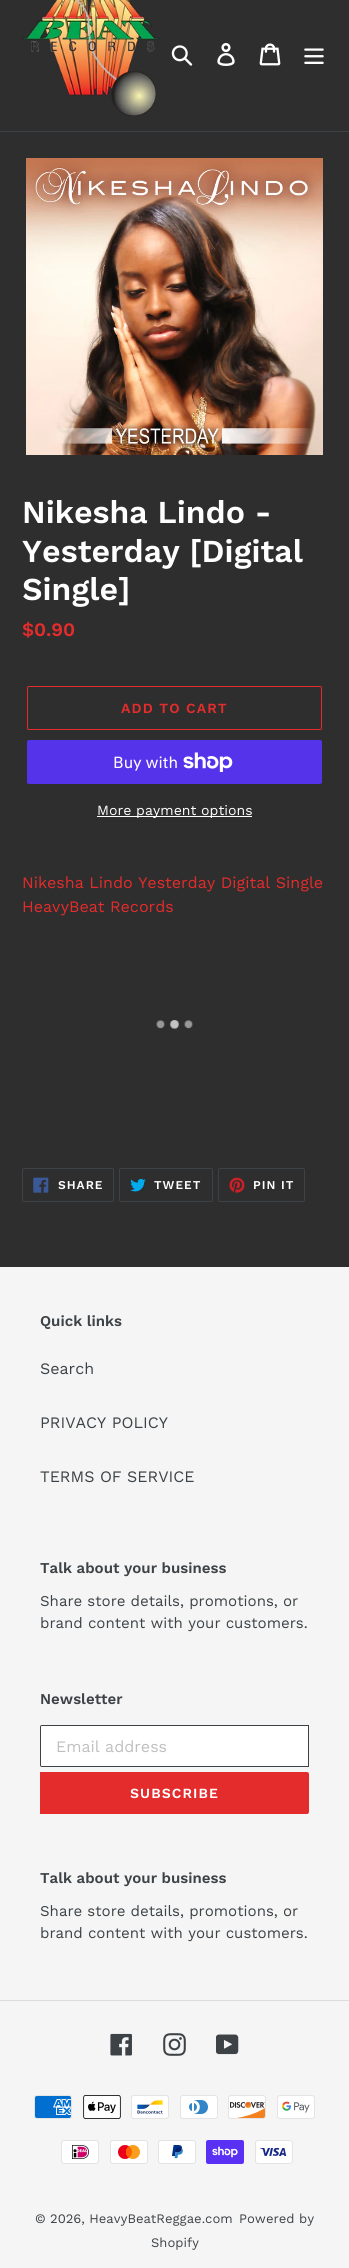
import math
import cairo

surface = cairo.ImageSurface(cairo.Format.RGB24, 349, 2268)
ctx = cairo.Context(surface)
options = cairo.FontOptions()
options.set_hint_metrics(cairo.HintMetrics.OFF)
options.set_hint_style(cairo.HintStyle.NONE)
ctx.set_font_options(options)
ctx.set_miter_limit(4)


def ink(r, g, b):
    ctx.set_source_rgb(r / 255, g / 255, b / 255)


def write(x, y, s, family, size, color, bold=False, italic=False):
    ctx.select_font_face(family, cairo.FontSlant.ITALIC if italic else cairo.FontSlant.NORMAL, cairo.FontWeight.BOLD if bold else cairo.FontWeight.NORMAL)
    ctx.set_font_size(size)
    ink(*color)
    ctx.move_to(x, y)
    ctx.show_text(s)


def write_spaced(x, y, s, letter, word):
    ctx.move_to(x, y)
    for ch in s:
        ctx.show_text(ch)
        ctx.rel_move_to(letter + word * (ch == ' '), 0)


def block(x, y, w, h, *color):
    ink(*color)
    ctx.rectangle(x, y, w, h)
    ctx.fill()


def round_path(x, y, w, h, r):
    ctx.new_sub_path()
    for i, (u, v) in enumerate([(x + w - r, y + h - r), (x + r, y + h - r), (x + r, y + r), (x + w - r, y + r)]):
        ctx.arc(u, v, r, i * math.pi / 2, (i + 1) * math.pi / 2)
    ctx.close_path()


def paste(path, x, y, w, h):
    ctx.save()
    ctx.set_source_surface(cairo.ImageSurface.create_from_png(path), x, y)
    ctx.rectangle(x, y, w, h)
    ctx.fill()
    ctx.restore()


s1 = dict(family="Work Sans SemiBold", size=32, color=(255, 255, 255))
s2 = dict(family="Work Sans SemiBold", size=19, color=(227, 44, 43))
s3 = dict(family="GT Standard", size=16, color=(255, 255, 255))
s4 = dict(family="Work Sans", size=14, color=(255, 255, 255))
s5 = dict(family="Work Sans", size=16, color=(227, 44, 43))
s6 = dict(family="Work Sans SemiBold", size=15, color=(61, 66, 70))
s7 = dict(family="Work Sans", size=16, color=(61, 66, 70))
s8 = dict(family="Work Sans", size=15, color=(61, 66, 70))
s9 = dict(family="Work Sans", size=16, color=(191, 191, 191))
s10 = dict(family="Work Sans", size=13, color=(61, 66, 70))

ink(46, 46, 46)
ctx.paint()
block(0, 131, 349, 1, 61, 66, 70)
paste("pic1.png", 22, 0, 138, 116)
paste("pic2.png", 171, 45, 22, 21)
paste("pic3.png", 217, 43, 18, 23)
paste("pic4.png", 259, 43, 22, 23)
paste("pic5.png", 304, 48, 20, 16)
paste("pic6.png", 26, 158, 297, 297)
write(22, 523, "Nikesha Lindo -", **s1)
write(22, 562, "Yesterday [Digital", **s1)
write(22, 600, "Single]", **s1)
write(22, 636, "$0.90", **s2)
round_path(27.5, 686.5, 294, 43, 1.5)
ctx.set_line_width(1)
ctx.stroke()
ctx.set_font_size(14)
write_spaced(121, 713, "ADD TO CART", 1.1, 0)
ink(84, 51, 235)
round_path(27, 740, 295, 44, 2)
ctx.fill()
write(113, 768, "Buy with", **s3)
paste("pic7.png", 183, 752, 50, 20)
block(97, 816, 155, 1, 255, 255, 255)
write(97, 815, "More payment options", **s4)
write(22, 888, "Nikesha Lindo Yesterday Digital Single", **s5)
write(22, 912, "HeavyBeat Records", **s5)
paste("pic8.png", 156, 1020, 37, 9)
round_path(22.5, 1168.5, 91, 33, 1.5)
ink(61, 66, 70)
ctx.stroke()
paste("pic9.png", 33, 1177, 16, 16)
ctx.select_font_face("Work Sans SemiBold")
ctx.set_font_size(12)
ink(255, 255, 255)
write_spaced(58, 1189, "SHARE", 1, 0)
round_path(119.5, 1168.5, 93, 33, 1.5)
ink(61, 66, 70)
ctx.stroke()
paste("pic10.png", 130, 1178, 16, 14)
ink(255, 255, 255)
write_spaced(154, 1189, "TWEET", 1, 0)
round_path(218.5, 1168.5, 86, 33, 1.5)
ink(61, 66, 70)
ctx.stroke()
paste("pic11.png", 229, 1177, 16, 16)
ink(255, 255, 255)
write_spaced(253, 1189, "PIN IT", 1, 0)
block(0, 1267, 349, 1001, 245, 245, 245)
write(40, 1326, "Quick links", **s6)
write(40, 1374, "Search", **s7)
write(40, 1428, "PRIVACY POLICY", **s7)
write(40, 1482, "TERMS OF SERVICE", **s7)
write(40, 1573, "Talk about your business", **s6)
write(40, 1606, "Share store details, promotions, or", **s8)
write(40, 1628, "brand content with your customers.", **s8)
write(40, 1704, "Newsletter", **s6)
ink(255, 255, 255)
ctx.new_path()
ctx.move_to(42, 1725.5)
ctx.line_to(308.5, 1725.5)
ctx.line_to(308.5, 1766.5)
ctx.line_to(42, 1766.5)
ctx.curve_to(41, 1766.5, 40.5, 1766, 40.5, 1765)
ctx.line_to(40.5, 1727)
ctx.curve_to(40.5, 1726, 41, 1725.5, 42, 1725.5)
ctx.close_path()
ctx.fill_preserve()
ink(61, 66, 70)
ctx.stroke()
write(56, 1752, "Email address", **s9)
ink(227, 44, 43)
ctx.new_path()
ctx.move_to(40, 1772)
ctx.line_to(307, 1772)
ctx.curve_to(308, 1772, 309, 1773, 309, 1774)
ctx.line_to(309, 1812)
ctx.curve_to(309, 1813, 308, 1814, 307, 1814)
ctx.line_to(40, 1814)
ctx.close_path()
ctx.fill()
ctx.select_font_face("Work Sans SemiBold")
ctx.set_font_size(14)
ink(255, 255, 255)
write_spaced(130, 1798, "SUBSCRIBE", 1.1, 0)
write(40, 1883, "Talk about your business", **s6)
write(40, 1916, "Share store details, promotions, or", **s8)
write(40, 1938, "brand content with your customers.", **s8)
block(0, 2000, 349, 1, 220, 220, 220)
paste("pic12.png", 110, 2033, 22, 23)
paste("pic13.png", 163, 2033, 23, 23)
paste("pic14.png", 216, 2034, 23, 21)
paste("pic15.png", 34, 2095, 38, 24)
paste("pic16.png", 83, 2095, 38, 24)
paste("pic17.png", 131, 2095, 38, 24)
paste("pic18.png", 180, 2095, 38, 24)
paste("pic19.png", 228, 2095, 38, 24)
paste("pic20.png", 277, 2095, 38, 24)
paste("pic21.png", 61, 2140, 38, 24)
paste("pic22.png", 110, 2140, 38, 24)
paste("pic23.png", 158, 2140, 38, 24)
paste("pic24.png", 206, 2140, 38, 24)
paste("pic25.png", 255, 2140, 38, 24)
write(35, 2223, "© 2026, HeavyBeatReggae.com", **s10)
write(239, 2223, "Powered by", **s10)
write(151, 2247, "Shopify", **s10)
surface.write_to_png("screenshot.png")
